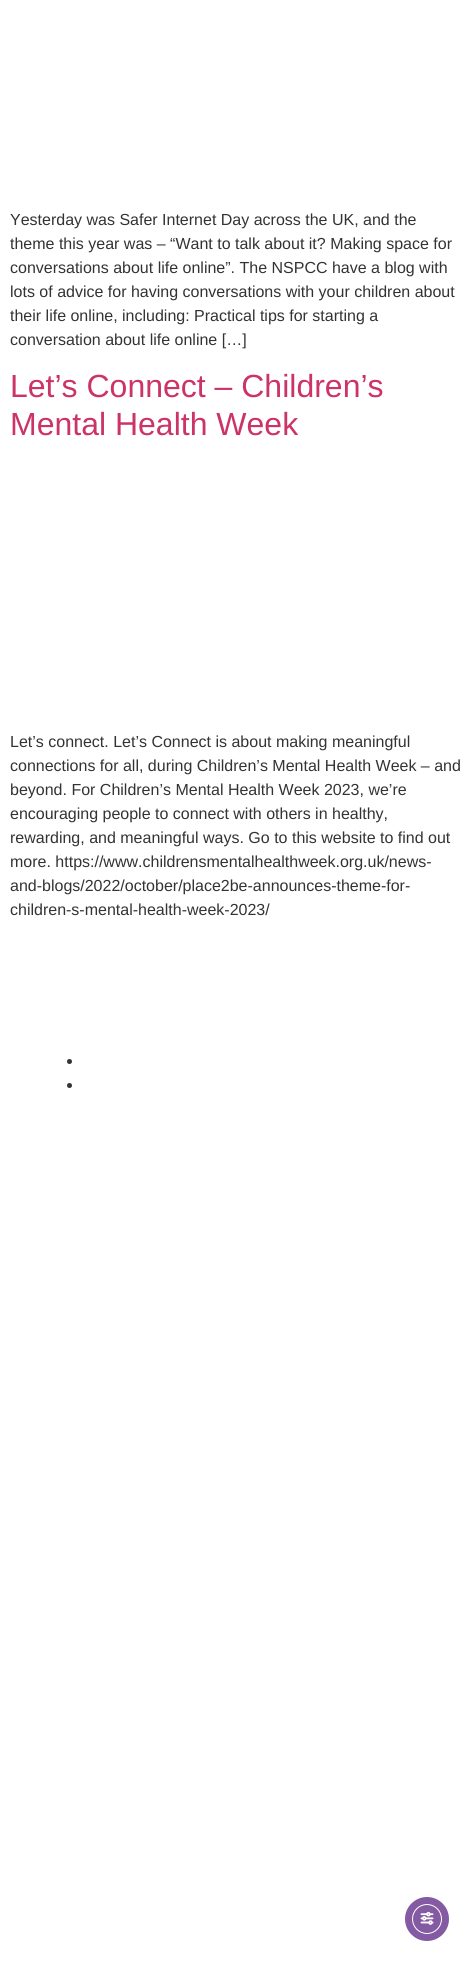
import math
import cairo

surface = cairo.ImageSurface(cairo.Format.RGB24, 473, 1965)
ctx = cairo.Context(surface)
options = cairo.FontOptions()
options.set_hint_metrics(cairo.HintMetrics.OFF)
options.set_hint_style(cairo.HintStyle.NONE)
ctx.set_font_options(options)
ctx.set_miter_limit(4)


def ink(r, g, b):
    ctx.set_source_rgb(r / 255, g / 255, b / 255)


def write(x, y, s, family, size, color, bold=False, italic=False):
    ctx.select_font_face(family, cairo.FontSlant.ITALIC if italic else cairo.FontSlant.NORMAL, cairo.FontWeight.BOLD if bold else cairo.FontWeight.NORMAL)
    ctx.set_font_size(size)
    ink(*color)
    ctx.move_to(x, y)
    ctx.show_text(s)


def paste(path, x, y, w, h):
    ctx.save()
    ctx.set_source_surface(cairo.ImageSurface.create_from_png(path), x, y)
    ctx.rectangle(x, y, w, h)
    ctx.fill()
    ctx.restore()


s1 = dict(family="Liberation Sans", size=16, color=(51, 51, 51))
s2 = dict(family="Liberation Sans", size=32, color=(204, 51, 102))

ink(255, 255, 255)
ctx.paint()
write(10, 225, "Yesterday was Safer Internet Day across the UK, and the", **s1)
write(10, 249, "theme this year was – “Want to talk about it? Making space for", **s1)
write(10, 273, "conversations about life online”. The NSPCC have a blog with", **s1)
write(10, 297, "lots of advice for having conversations with your children about", **s1)
write(10, 321, "their life online, including: Practical tips for starting a", **s1)
write(10, 345, "conversation about life online […]", **s1)
write(10, 397, "Let’s Connect – Children’s", **s2)
write(10, 435, "Mental Health Week", **s2)
write(10, 747, "Let’s connect. Let’s Connect is about making meaningful", **s1)
write(10, 771, "connections for all, during Children’s Mental Health Week – and", **s1)
write(10, 795, "beyond. For Children’s Mental Health Week 2023, we’re", **s1)
write(10, 819, "encouraging people to connect with others in healthy,", **s1)
write(10, 843, "rewarding, and meaningful ways. Go to this website to find out", **s1)
write(10, 867, "more. https://www.childrensmentalhealthweek.org.uk/news-", **s1)
write(10, 891, "and-blogs/2022/october/place2be-announces-theme-for-", **s1)
write(10, 915, "children-s-mental-health-week-2023/", **s1)
ctx.new_path()
ctx.arc(69.5, 1061.5, 2.5, 0, 2 * math.pi)
ctx.fill()
ctx.arc(69.5, 1085.5, 2.5, 0, 2 * math.pi)
ctx.fill()
ink(132, 91, 162)
ctx.arc(427, 1919, 22, 0, 2 * math.pi)
ctx.fill()
ctx.arc(427, 1919, 14.5, 0, 2 * math.pi)
ink(255, 255, 255)
ctx.set_line_width(1)
ctx.stroke()
paste("pic1.png", 420, 1911, 14, 14)
surface.write_to_png("screenshot.png")
